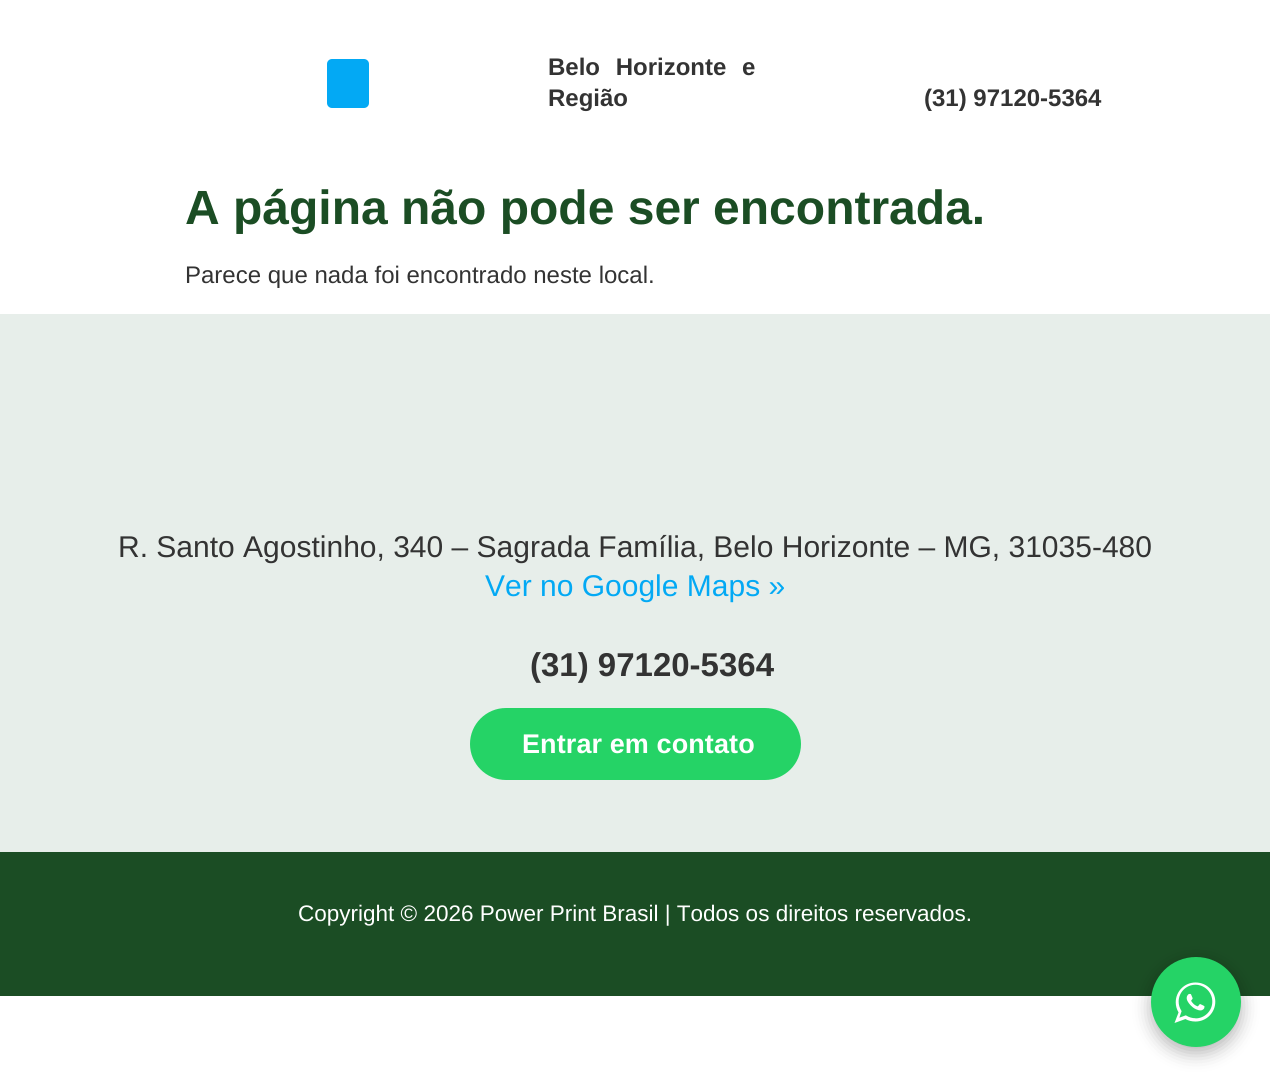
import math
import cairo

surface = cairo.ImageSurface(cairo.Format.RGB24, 1270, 1076)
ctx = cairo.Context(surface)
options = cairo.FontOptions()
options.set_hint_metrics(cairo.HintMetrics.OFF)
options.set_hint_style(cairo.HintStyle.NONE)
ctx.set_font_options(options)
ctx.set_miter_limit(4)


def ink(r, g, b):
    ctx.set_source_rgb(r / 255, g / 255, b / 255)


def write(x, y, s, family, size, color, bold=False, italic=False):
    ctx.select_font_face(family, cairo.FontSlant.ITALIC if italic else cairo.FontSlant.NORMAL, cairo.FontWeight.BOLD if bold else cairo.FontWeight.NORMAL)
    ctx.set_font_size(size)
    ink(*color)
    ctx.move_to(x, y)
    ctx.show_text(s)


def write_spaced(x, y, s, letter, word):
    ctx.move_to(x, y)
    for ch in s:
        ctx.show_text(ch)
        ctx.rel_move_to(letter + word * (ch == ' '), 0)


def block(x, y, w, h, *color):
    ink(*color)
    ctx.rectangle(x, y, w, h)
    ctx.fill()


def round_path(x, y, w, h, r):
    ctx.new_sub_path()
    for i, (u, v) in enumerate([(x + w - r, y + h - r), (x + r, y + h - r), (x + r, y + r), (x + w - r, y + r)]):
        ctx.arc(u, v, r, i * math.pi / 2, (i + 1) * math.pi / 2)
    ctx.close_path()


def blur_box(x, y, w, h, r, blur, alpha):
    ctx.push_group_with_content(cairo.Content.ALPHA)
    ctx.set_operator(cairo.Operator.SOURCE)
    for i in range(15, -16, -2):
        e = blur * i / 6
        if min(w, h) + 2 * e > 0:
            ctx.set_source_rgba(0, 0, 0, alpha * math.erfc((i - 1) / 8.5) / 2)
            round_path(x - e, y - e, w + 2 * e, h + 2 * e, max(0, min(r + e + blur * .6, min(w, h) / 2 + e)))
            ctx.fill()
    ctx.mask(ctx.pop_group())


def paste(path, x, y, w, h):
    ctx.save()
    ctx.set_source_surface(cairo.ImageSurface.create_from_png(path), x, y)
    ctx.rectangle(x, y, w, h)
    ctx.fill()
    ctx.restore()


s1 = dict(family="Liberation Sans", size=24, color=(51, 51, 51), bold=True)
s2 = dict(family="Liberation Sans", size=48, color=(27, 77, 36), bold=True)
s3 = dict(family="Liberation Sans", size=24, color=(51, 51, 51))
s4 = dict(family="Liberation Sans", size=30, color=(51, 51, 51))
s5 = dict(family="Liberation Sans", size=30, color=(3, 169, 244))
s6 = dict(family="Liberation Sans", size=33, color=(51, 51, 51), bold=True)
s7 = dict(family="Liberation Sans", size=22.5, color=(255, 255, 255))

ink(255, 255, 255)
ctx.paint()
ink(3, 169, 244)
round_path(327, 59, 42, 49, 5)
ctx.fill()
ctx.select_font_face("Liberation Sans", cairo.FontSlant.NORMAL, cairo.FontWeight.BOLD)
ctx.set_font_size(24)
ink(51, 51, 51)
write_spaced(548, 75, "Belo Horizonte e", 0, 9)
write(548, 106, "Região", **s1)
write(924, 106, "(31) 97120-5364", **s1)
write(185, 224, "A página não pode ser encontrada.", **s2)
write(185, 283, "Parece que nada foi encontrado neste local.", **s3)
block(0, 314, 1270, 538, 231, 238, 234)
write(118, 557, "R. Santo Agostinho, 340 – Sagrada Família, Belo Horizonte – MG, 31035-480", **s4)
write(485, 596, "Ver no Google Maps »", **s5)
write(530, 676, "(31) 97120-5364", **s6)
ink(37, 211, 102)
round_path(470, 708, 331, 72, 36)
ctx.fill()
ctx.set_font_size(27)
ink(255, 255, 255)
write_spaced(522, 753, "Entrar em contato", 0.1, 0)
block(0, 852, 1270, 144, 27, 77, 36)
write(298, 921, "Copyright © 2026 Power Print Brasil | Todos os direitos reservados.", **s7)
ink(0, 0, 0)
blur_box(1151, 963, 90, 90, 45, 9, 0.3)
ink(37, 211, 102)
ctx.arc(1196, 1002, 45, 0, 2 * math.pi)
ctx.fill()
paste("pic1.png", 1174, 982, 42, 41)
surface.write_to_png("screenshot.png")
